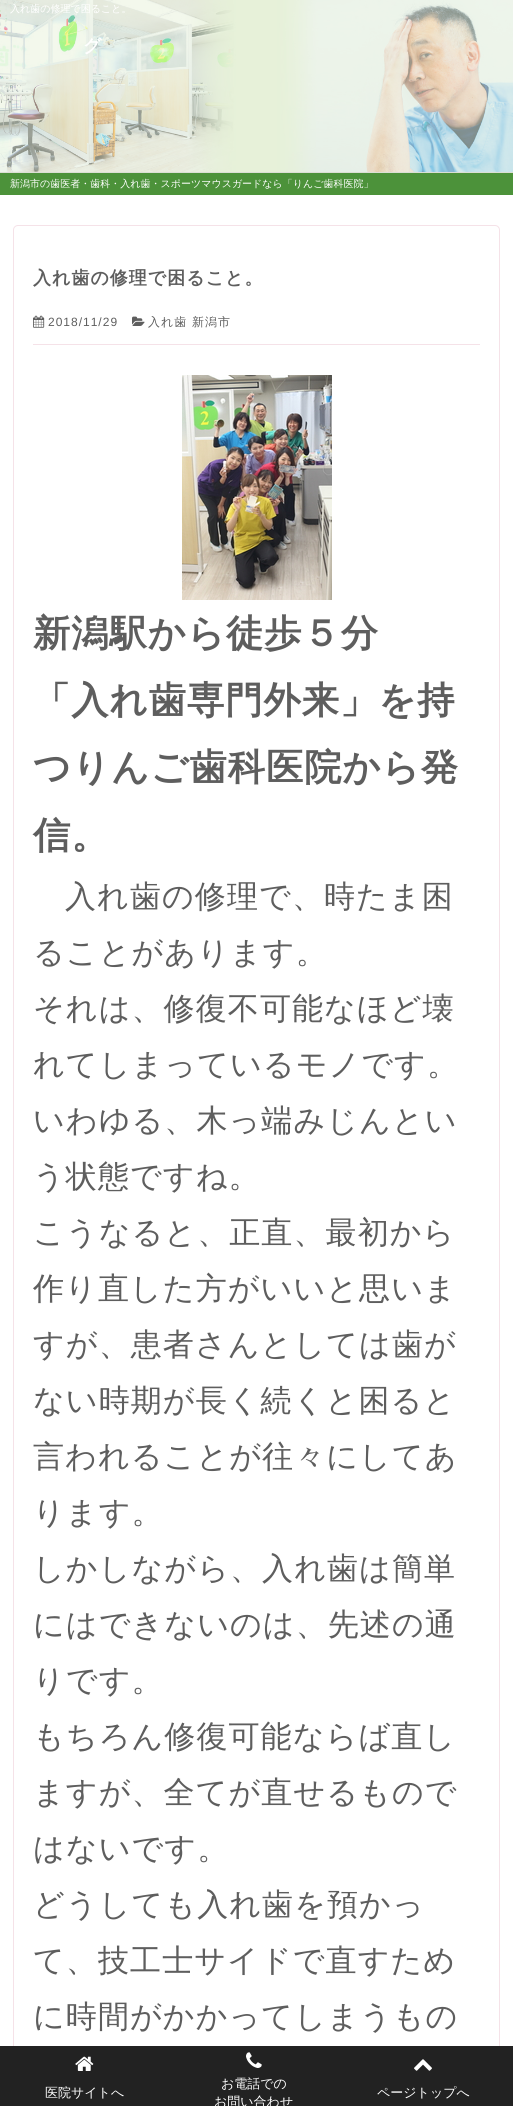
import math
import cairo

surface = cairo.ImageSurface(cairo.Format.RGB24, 513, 2106)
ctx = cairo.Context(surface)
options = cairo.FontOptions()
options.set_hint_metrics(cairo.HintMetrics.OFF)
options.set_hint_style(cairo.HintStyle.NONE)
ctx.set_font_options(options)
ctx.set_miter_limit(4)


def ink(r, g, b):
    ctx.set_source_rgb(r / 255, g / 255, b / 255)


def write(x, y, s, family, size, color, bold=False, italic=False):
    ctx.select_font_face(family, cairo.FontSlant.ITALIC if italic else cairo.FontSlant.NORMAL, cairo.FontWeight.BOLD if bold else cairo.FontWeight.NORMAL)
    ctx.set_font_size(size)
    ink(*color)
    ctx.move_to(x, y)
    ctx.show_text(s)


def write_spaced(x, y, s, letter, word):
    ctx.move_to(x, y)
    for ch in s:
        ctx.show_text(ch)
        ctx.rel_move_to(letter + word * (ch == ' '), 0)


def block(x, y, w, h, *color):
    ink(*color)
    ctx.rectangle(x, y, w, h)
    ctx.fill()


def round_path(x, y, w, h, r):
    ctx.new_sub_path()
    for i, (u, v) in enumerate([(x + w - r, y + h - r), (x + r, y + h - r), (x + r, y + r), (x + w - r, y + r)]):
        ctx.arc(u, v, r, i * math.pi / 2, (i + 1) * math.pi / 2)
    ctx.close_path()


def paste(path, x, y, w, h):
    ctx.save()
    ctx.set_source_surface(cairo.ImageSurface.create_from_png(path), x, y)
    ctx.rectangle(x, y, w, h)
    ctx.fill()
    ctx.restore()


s1 = dict(family="WenQuanYi Zen Hei Medium", size=10, color=(255, 255, 255))
s2 = dict(family="WenQuanYi Zen Hei", size=18, color=(255, 255, 255), bold=True)
s3 = dict(family="WenQuanYi Zen Hei Medium", size=13, color=(255, 255, 255))

ink(255, 255, 255)
ctx.paint()
paste("pic1.png", 0, 0, 513, 172)
block(0, 172, 513, 1, 219, 223, 212)
write(10, 12, "入れ歯の修理で困ること。", **s1)
write(83, 52, "グ", **s2)
block(0, 173, 513, 22, 76, 146, 58)
write(10, 187, "新潟市の歯医者・歯科・入れ歯・スポーツマウスガードなら「りんご歯科医院」", **s1)
round_path(13.5, 225.5, 486, 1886, 4.5)
ink(245, 226, 232)
ctx.set_line_width(1)
ctx.stroke()
ctx.select_font_face("WenQuanYi Zen Hei", cairo.FontSlant.NORMAL, cairo.FontWeight.BOLD)
ctx.set_font_size(18)
ink(94, 94, 94)
write_spaced(33, 284, "入れ歯の修理で困ること。", 1, 0)
paste("pic2.png", 33, 315, 12, 13)
ctx.select_font_face("Liberation Sans")
ctx.set_font_size(12)
write_spaced(48, 326, "2018/11/29", 1, 0)
paste("pic3.png", 132, 316, 13, 10)
ctx.select_font_face("WenQuanYi Zen Hei Medium")
write_spaced(148, 326, "入れ歯 新潟市", 1, 0)
block(33, 344, 447, 1, 245, 226, 232)
paste("pic4.png", 182, 375, 150, 225)
ctx.select_font_face("WenQuanYi Zen Hei", cairo.FontSlant.NORMAL, cairo.FontWeight.BOLD)
ctx.set_font_size(37.25)
ink(94, 94, 94)
write_spaced(33, 646, "新潟駅から徒歩５分", 1, 0)
write_spaced(33, 713, "「入れ歯専門外来」を持", 1, 0)
write_spaced(33, 780, "つりんご歯科医院から発", 1, 0)
write_spaced(33, 848, "信。", 1, 0)
ctx.select_font_face("WenQuanYi Zen Hei Medium")
ctx.set_font_size(31.1)
write_spaced(65, 907, "入れ歯の修理で、時たま困", 1, 0)
write_spaced(33, 963, "ることがあります。", 1, 0)
write_spaced(33, 1019, "それは、修復不可能なほど壊", 1, 0)
write_spaced(33, 1075, "れてしまっているモノです。", 1, 0)
write_spaced(33, 1131, "いわゆる、木っ端みじんとい", 1, 0)
write_spaced(33, 1187, "う状態ですね。", 1, 0)
write_spaced(33, 1243, "こうなると、正直、最初から", 1, 0)
write_spaced(33, 1299, "作り直した方がいいと思いま", 1, 0)
write_spaced(33, 1355, "すが、患者さんとしては歯が", 1, 0)
write_spaced(33, 1411, "ない時期が長く続くと困ると", 1, 0)
write_spaced(33, 1467, "言われることが往々にしてあ", 1, 0)
write_spaced(33, 1523, "ります。", 1, 0)
write_spaced(33, 1579, "しかしながら、入れ歯は簡単", 1, 0)
write_spaced(33, 1635, "にはできないのは、先述の通", 1, 0)
write_spaced(33, 1691, "りです。", 1, 0)
write_spaced(33, 1747, "もちろん修復可能ならば直し", 1, 0)
write_spaced(33, 1803, "ますが、全てが直せるもので", 1, 0)
write_spaced(33, 1859, "はないです。", 1, 0)
write_spaced(33, 1915, "どうしても入れ歯を預かっ", 1, 0)
write_spaced(33, 1971, "て、技工士サイドで直すため", 1, 0)
write_spaced(33, 2027, "に時間がかかってしまうもの", 1, 0)
block(0, 2046, 513, 60, 34, 34, 34)
paste("pic5.png", 75, 2056, 19, 15)
write(45, 2097, "医院サイトへ", **s3)
paste("pic6.png", 246, 2052, 16, 16)
write(221, 2088, "お電話での", **s3)
write(214, 2106, "お問い合わせ", **s3)
paste("pic7.png", 414, 2059, 18, 12)
write(377, 2097, "ページトップへ", **s3)
surface.write_to_png("screenshot.png")
